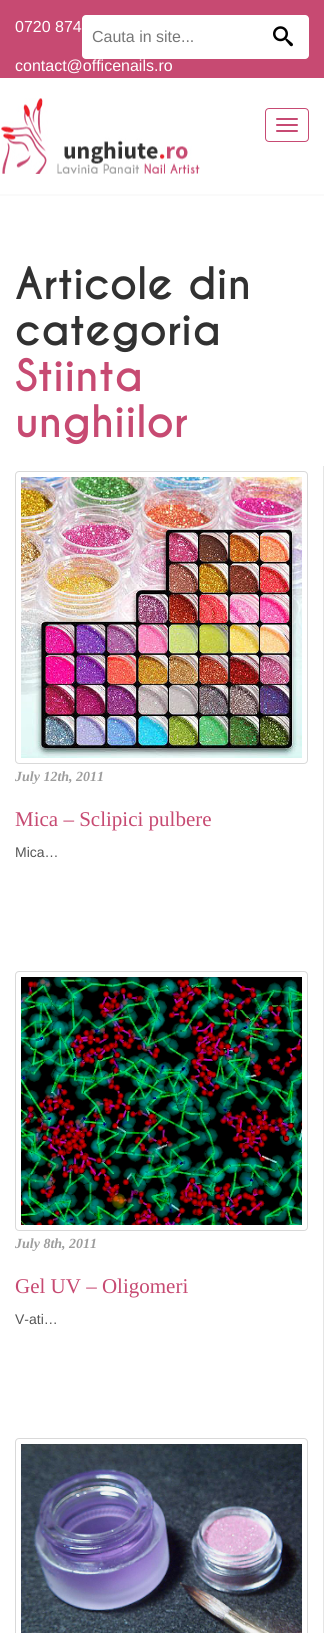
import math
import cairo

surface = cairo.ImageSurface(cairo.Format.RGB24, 324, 1633)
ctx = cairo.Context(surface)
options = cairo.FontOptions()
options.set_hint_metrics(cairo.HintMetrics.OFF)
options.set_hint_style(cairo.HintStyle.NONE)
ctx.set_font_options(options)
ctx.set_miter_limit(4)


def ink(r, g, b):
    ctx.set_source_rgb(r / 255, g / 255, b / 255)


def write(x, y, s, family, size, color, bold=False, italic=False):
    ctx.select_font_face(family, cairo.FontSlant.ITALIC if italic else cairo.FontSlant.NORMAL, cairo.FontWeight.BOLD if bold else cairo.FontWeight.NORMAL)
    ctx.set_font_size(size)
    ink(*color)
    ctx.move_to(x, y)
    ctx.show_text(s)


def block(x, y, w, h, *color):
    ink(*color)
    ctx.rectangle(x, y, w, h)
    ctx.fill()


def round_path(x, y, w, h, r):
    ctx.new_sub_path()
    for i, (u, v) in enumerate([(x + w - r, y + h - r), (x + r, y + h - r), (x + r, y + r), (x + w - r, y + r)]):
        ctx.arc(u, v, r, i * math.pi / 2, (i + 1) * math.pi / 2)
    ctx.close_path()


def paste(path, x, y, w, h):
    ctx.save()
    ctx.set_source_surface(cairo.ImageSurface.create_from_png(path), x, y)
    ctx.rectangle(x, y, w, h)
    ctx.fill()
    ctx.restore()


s1 = dict(family="Liberation Sans", size=16, color=(255, 255, 255))
s2 = dict(family="Liberation Sans", size=16, color=(119, 119, 119))
s3 = dict(family="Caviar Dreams", size=42, color=(49, 49, 49), bold=True)
s4 = dict(family="Caviar Dreams", size=42, color=(199, 74, 114), bold=True)
s5 = dict(family="Liberation Serif", size=14, color=(157, 157, 157), bold=True, italic=True)
s6 = dict(family="Liberation Serif", size=21, color=(199, 74, 114))
s7 = dict(family="Liberation Sans", size=14, color=(85, 85, 85))

ink(255, 255, 255)
ctx.paint()
block(0, 0, 324, 78, 199, 74, 114)
write(15, 32, "0720 874", **s1)
write(15, 71, "contact@officenails.ro", **s1)
round_path(82, 15, 227, 44, 4)
ctx.fill()
write(92, 42, "Cauta in site...", **s2)
paste("pic1.png", 273, 26, 20, 21)
block(0, 194, 324, 2, 250, 250, 250)
paste("pic2.png", 1, 98, 199, 76)
round_path(265.5, 108.5, 43, 33, 3.5)
ink(199, 74, 115)
ctx.set_line_width(1)
ctx.stroke()
round_path(276, 118, 22, 2, 1)
ctx.fill()
round_path(276, 124, 22, 2, 1)
ctx.fill()
round_path(276, 130, 22, 2, 1)
ctx.fill()
write(15, 299, "Articole din", **s3)
write(15, 345, "categoria", **s3)
write(15, 391, "Stiinta", **s4)
write(15, 437, "unghiilor", **s4)
block(323, 466, 1, 1167, 229, 229, 229)
round_path(15.5, 471.5, 292, 292, 3.5)
ink(217, 217, 217)
ctx.stroke()
paste("pic3.png", 21, 477, 281, 281)
write(15, 781, "July 12th, 2011", **s5)
write(15, 826, "Mica – Sclipici pulbere", **s6)
write(15, 857, "Mica…", **s7)
round_path(15.5, 971.5, 292, 259, 3.5)
ink(217, 217, 217)
ctx.stroke()
paste("pic4.png", 21, 977, 281, 248)
write(15, 1248, "July 8th, 2011", **s5)
write(15, 1293, "Gel UV – Oligomeri", **s6)
write(15, 1324, "V-ati…", **s7)
round_path(15.5, 1438.5, 292, 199, 3.5)
ink(217, 217, 217)
ctx.stroke()
paste("pic5.png", 21, 1444, 281, 189)
surface.write_to_png("screenshot.png")
